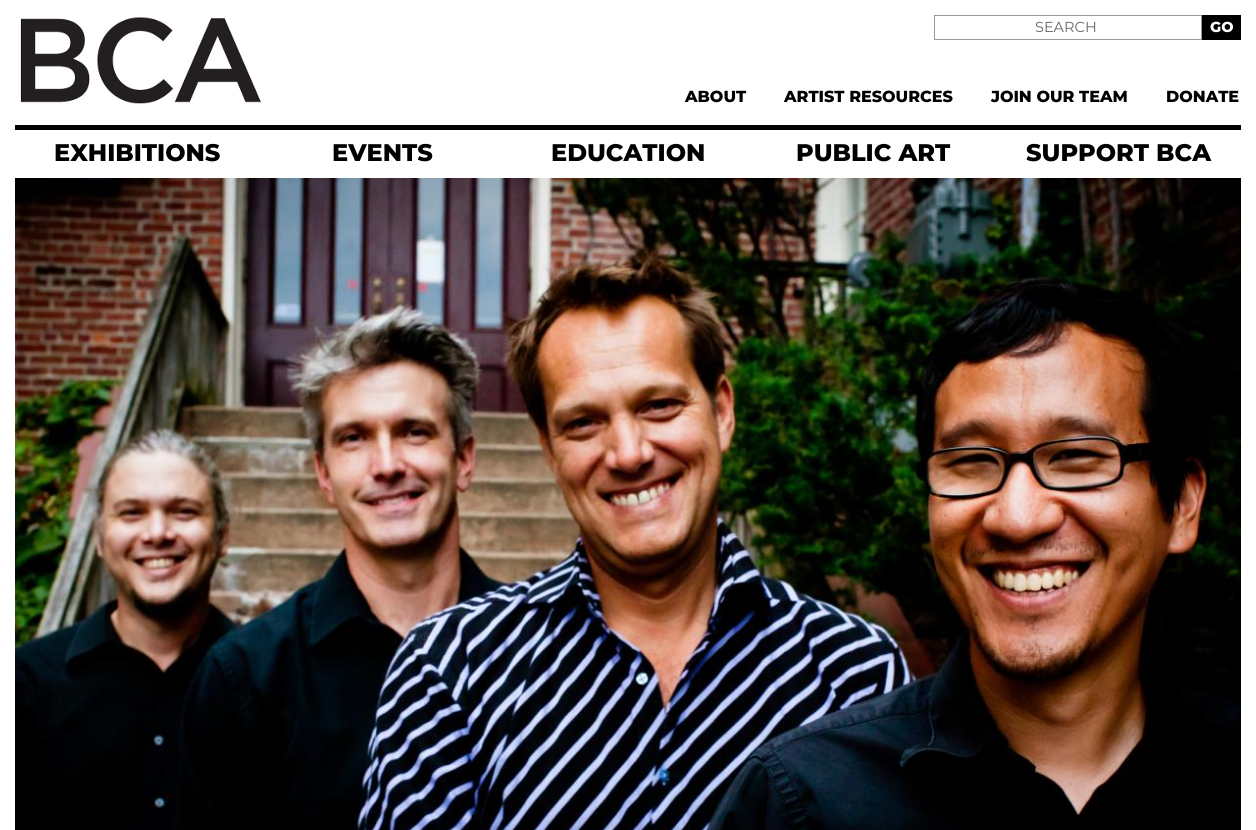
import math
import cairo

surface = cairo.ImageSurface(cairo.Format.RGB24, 1256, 830)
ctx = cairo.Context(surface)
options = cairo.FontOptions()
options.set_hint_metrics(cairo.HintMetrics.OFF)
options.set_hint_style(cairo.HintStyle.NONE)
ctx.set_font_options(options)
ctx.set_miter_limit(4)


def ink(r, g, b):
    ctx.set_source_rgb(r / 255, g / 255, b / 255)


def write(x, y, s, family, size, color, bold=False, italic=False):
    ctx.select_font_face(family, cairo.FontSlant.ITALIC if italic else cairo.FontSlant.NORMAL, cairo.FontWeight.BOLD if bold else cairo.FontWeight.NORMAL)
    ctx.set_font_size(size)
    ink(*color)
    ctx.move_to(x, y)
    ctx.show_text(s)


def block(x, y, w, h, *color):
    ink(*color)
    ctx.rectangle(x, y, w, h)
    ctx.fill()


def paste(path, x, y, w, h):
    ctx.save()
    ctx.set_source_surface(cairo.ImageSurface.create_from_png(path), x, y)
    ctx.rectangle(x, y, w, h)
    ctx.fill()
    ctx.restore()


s1 = dict(family="Montserrat", size=14.5, color=(102, 102, 102))
s2 = dict(family="Montserrat ExtraBold", size=14.5, color=(255, 255, 255))
s3 = dict(family="Montserrat ExtraBold", size=16, color=(0, 0, 0))
s4 = dict(family="Montserrat ExtraBold", size=24, color=(0, 0, 0))

ink(255, 255, 255)
ctx.paint()
paste("pic1.png", 20, 17, 241, 87)
ctx.rectangle(934.5, 15.5, 267, 24)
ink(153, 153, 153)
ctx.set_line_width(1)
ctx.stroke()
write(1035, 32, "SEARCH", **s1)
block(1202, 15, 39, 25, 0, 0, 0)
write(1210, 32, "GO", **s2)
write(685, 102, "ABOUT", **s3)
write(784, 102, "ARTIST RESOURCES", **s3)
write(991, 102, "JOIN OUR TEAM", **s3)
write(1166, 102, "DONATE", **s3)
block(15, 125, 1226, 5, 0, 0, 0)
write(54, 161, "EXHIBITIONS", **s4)
write(332, 161, "EVENTS", **s4)
write(551, 161, "EDUCATION", **s4)
write(796, 161, "PUBLIC ART", **s4)
write(1026, 161, "SUPPORT BCA", **s4)
paste("pic2.png", 15, 178, 1226, 652)
surface.write_to_png("screenshot.png")
